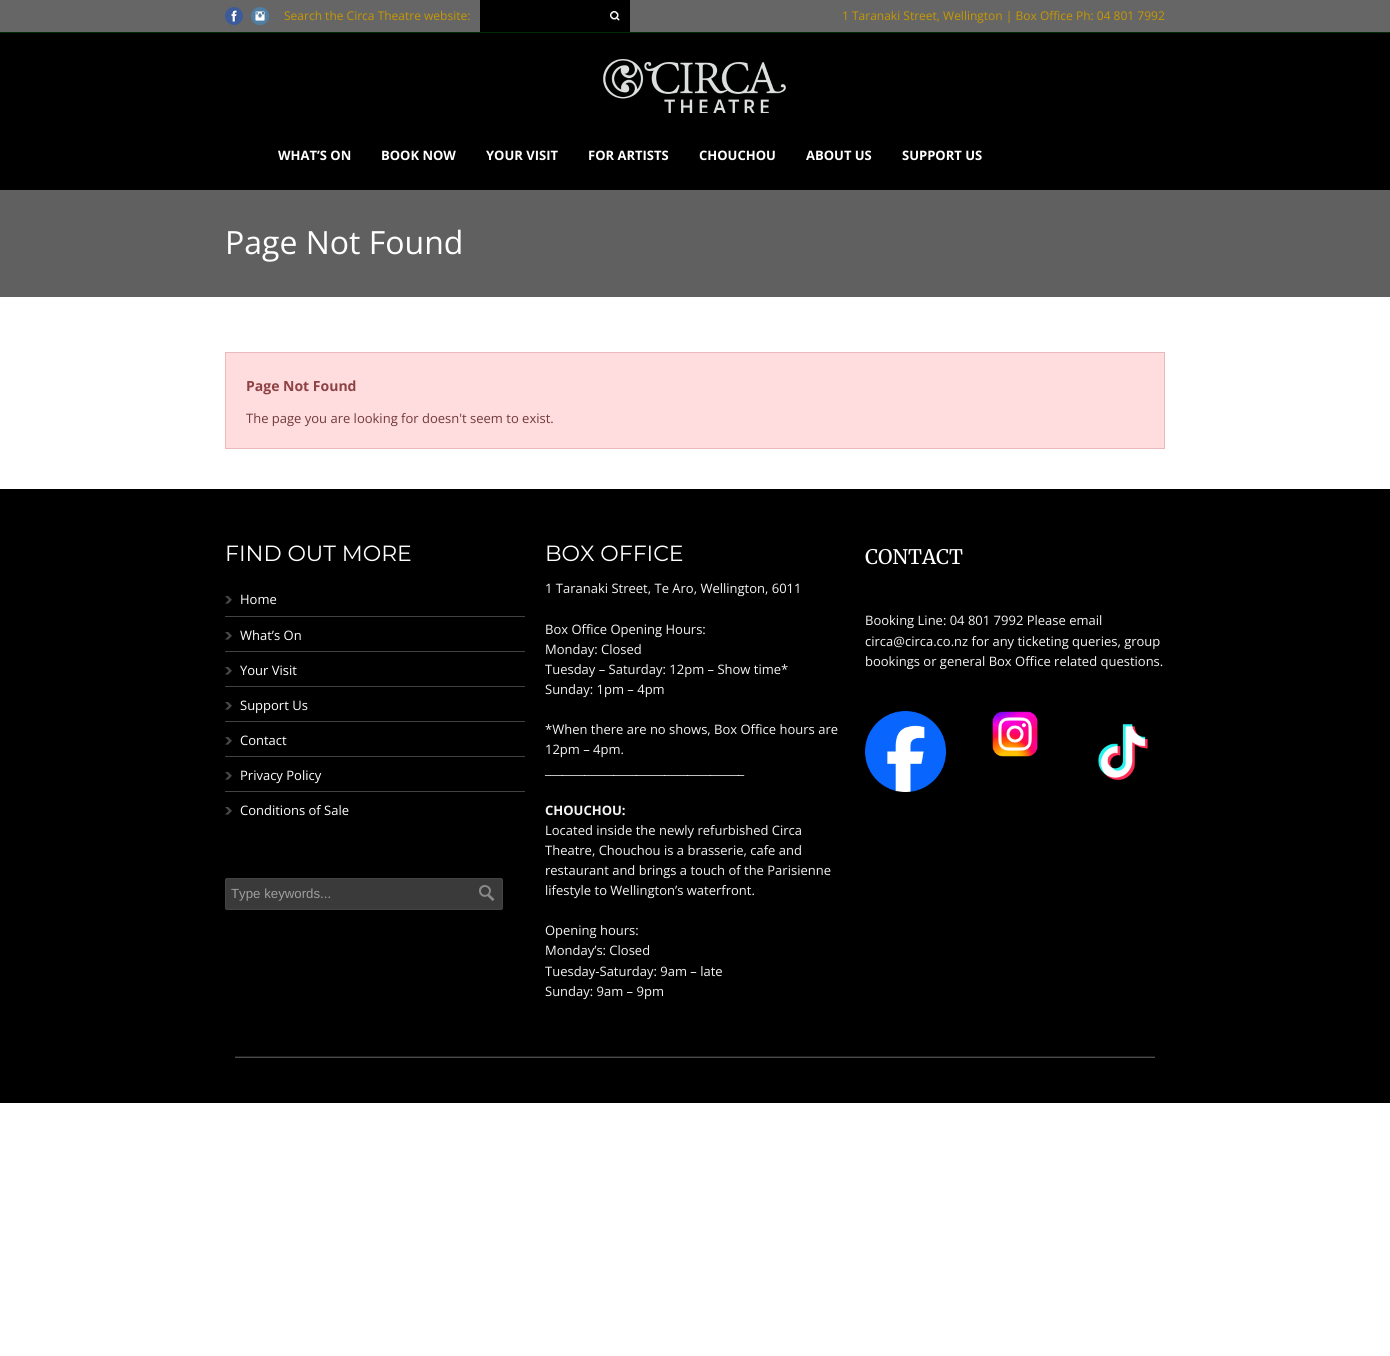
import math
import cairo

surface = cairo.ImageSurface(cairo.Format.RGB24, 1390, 1356)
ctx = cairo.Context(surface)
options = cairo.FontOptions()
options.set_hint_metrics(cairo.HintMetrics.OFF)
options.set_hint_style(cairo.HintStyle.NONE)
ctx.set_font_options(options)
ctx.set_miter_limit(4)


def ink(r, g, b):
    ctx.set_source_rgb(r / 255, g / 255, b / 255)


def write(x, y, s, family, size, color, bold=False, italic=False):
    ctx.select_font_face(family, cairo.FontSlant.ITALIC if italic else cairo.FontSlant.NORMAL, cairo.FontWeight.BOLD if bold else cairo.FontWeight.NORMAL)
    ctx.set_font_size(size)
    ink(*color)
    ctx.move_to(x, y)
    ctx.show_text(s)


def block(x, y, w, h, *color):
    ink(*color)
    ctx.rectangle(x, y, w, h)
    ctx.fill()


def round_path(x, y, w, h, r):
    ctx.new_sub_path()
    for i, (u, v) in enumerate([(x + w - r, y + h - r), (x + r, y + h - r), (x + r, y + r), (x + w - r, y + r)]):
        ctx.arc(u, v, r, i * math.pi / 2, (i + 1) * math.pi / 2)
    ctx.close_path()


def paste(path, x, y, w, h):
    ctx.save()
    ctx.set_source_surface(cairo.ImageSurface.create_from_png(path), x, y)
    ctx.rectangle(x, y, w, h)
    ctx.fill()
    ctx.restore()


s1 = dict(family="Open Sans", size=12, color=(198, 152, 0))
s2 = dict(family="Open Sans", size=13, color=(255, 255, 255), bold=True)
s3 = dict(family="Open Sans", size=32, color=(255, 255, 255))
s4 = dict(family="Open Sans", size=14, color=(141, 67, 69), bold=True)
s5 = dict(family="Open Sans", size=13, color=(113, 58, 60))
s6 = dict(family="Montserrat", size=22, color=(255, 255, 255))
s7 = dict(family="Open Sans", size=13, color=(255, 255, 255))
s8 = dict(family="Liberation Sans", size=13.25, color=(158, 158, 158))
s9 = dict(family="Open Sans", size=13, color=(245, 245, 245))
s10 = dict(family="Open Sans", size=13, color=(245, 245, 245), bold=True)
s11 = dict(family="Merriweather", size=20, color=(255, 255, 255))

ink(255, 255, 255)
ctx.paint()
block(0, 0, 1390, 32, 102, 102, 102)
block(0, 32, 1390, 1, 1, 43, 5)
paste("pic1.png", 225, 7, 18, 18)
paste("pic2.png", 251, 7, 18, 18)
write(284, 20, "Search the Circa Theatre website:", **s1)
block(480, 0, 150, 32, 0, 0, 0)
paste("pic3.png", 610, 11, 10, 10)
write(842, 20, "1 Taranaki Street, Wellington | Box Office Ph: 04 801 7992", **s1)
block(0, 33, 1390, 157, 0, 0, 0)
paste("pic4.png", 603, 59, 183, 54)
write(278, 160, "WHAT’S ON", **s2)
write(381, 160, "BOOK NOW", **s2)
write(486, 160, "YOUR VISIT", **s2)
write(588, 160, "FOR ARTISTS", **s2)
write(699, 160, "CHOUCHOU", **s2)
write(806, 160, "ABOUT US", **s2)
write(902, 160, "SUPPORT US", **s2)
block(0, 190, 1390, 107, 96, 96, 96)
write(225, 254, "Page Not Found", **s3)
ink(255, 220, 221)
ctx.rectangle(225.5, 352.5, 939, 96)
ctx.fill_preserve()
ink(233, 185, 187)
ctx.set_line_width(1)
ctx.stroke()
write(246, 391, "Page Not Found", **s4)
write(246, 423, "The page you are looking for doesn't seem to exist.", **s5)
block(0, 489, 1390, 614, 0, 0, 0)
write(225, 561, "FIND OUT MORE", **s6)
paste("pic5.png", 225, 596, 7, 8)
block(225, 616, 300, 1, 66, 66, 66)
write(240, 604, "Home", **s7)
paste("pic5.png", 225, 632, 7, 8)
block(225, 651, 300, 1, 66, 66, 66)
write(240, 640, "What’s On", **s7)
paste("pic5.png", 225, 667, 7, 8)
block(225, 686, 300, 1, 66, 66, 66)
write(240, 675, "Your Visit", **s7)
paste("pic5.png", 225, 702, 7, 8)
block(225, 721, 300, 1, 66, 66, 66)
write(240, 710, "Support Us", **s7)
paste("pic5.png", 225, 737, 7, 8)
block(225, 756, 300, 1, 66, 66, 66)
write(240, 745, "Contact", **s7)
paste("pic5.png", 225, 772, 7, 8)
block(225, 791, 300, 1, 66, 66, 66)
write(240, 780, "Privacy Policy", **s7)
paste("pic5.png", 225, 807, 7, 8)
write(240, 815, "Conditions of Sale", **s7)
ink(58, 58, 58)
round_path(225.5, 878.5, 277, 31, 1.5)
ctx.fill_preserve()
ink(68, 68, 68)
ctx.stroke()
write(231, 898, "Type keywords...", **s8)
paste("pic6.png", 479, 885, 16, 16)
write(545, 561, "BOX OFFICE", **s6)
write(545, 593, "1 Taranaki Street, Te Aro, Wellington, 6011", **s9)
write(545, 634, "Box Office Opening Hours:", **s9)
write(545, 654, "Monday: Closed", **s9)
write(545, 674, "Tuesday – Saturday: 12pm – Show time*", **s9)
write(545, 694, "Sunday: 1pm – 4pm", **s9)
write(545, 734, "*When there are no shows, Box Office hours are", **s9)
write(545, 754, "12pm – 4pm.", **s9)
write(545, 774, "___________________________________", **s9)
write(545, 815, "CHOUCHOU:", **s10)
write(545, 835, "Located inside the newly refurbished Circa", **s9)
write(545, 855, "Theatre, Chouchou is a brasserie, cafe and", **s9)
write(545, 875, "restaurant and brings a touch of the Parisienne", **s9)
write(545, 895, "lifestyle to Wellington’s waterfront.", **s9)
write(545, 935, "Opening hours:", **s9)
write(545, 955, "Monday’s: Closed", **s9)
write(545, 976, "Tuesday-Saturday: 9am – late", **s9)
write(545, 996, "Sunday: 9am – 9pm", **s9)
write(865, 564, "CONTACT", **s11)
write(865, 625, "Booking Line: 04 801 7992 Please email", **s9)
write(865, 646, "circa@circa.co.nz for any ticketing queries, group", **s9)
write(865, 666, "bookings or general Box Office related questions.", **s9)
paste("pic7.png", 865, 711, 81, 81)
paste("pic8.png", 992, 711, 46, 46)
paste("pic9.png", 1098, 724, 50, 57)
block(235, 1056, 920, 1, 30, 30, 30)
block(235, 1057, 920, 1, 73, 73, 73)
surface.write_to_png("screenshot.png")
